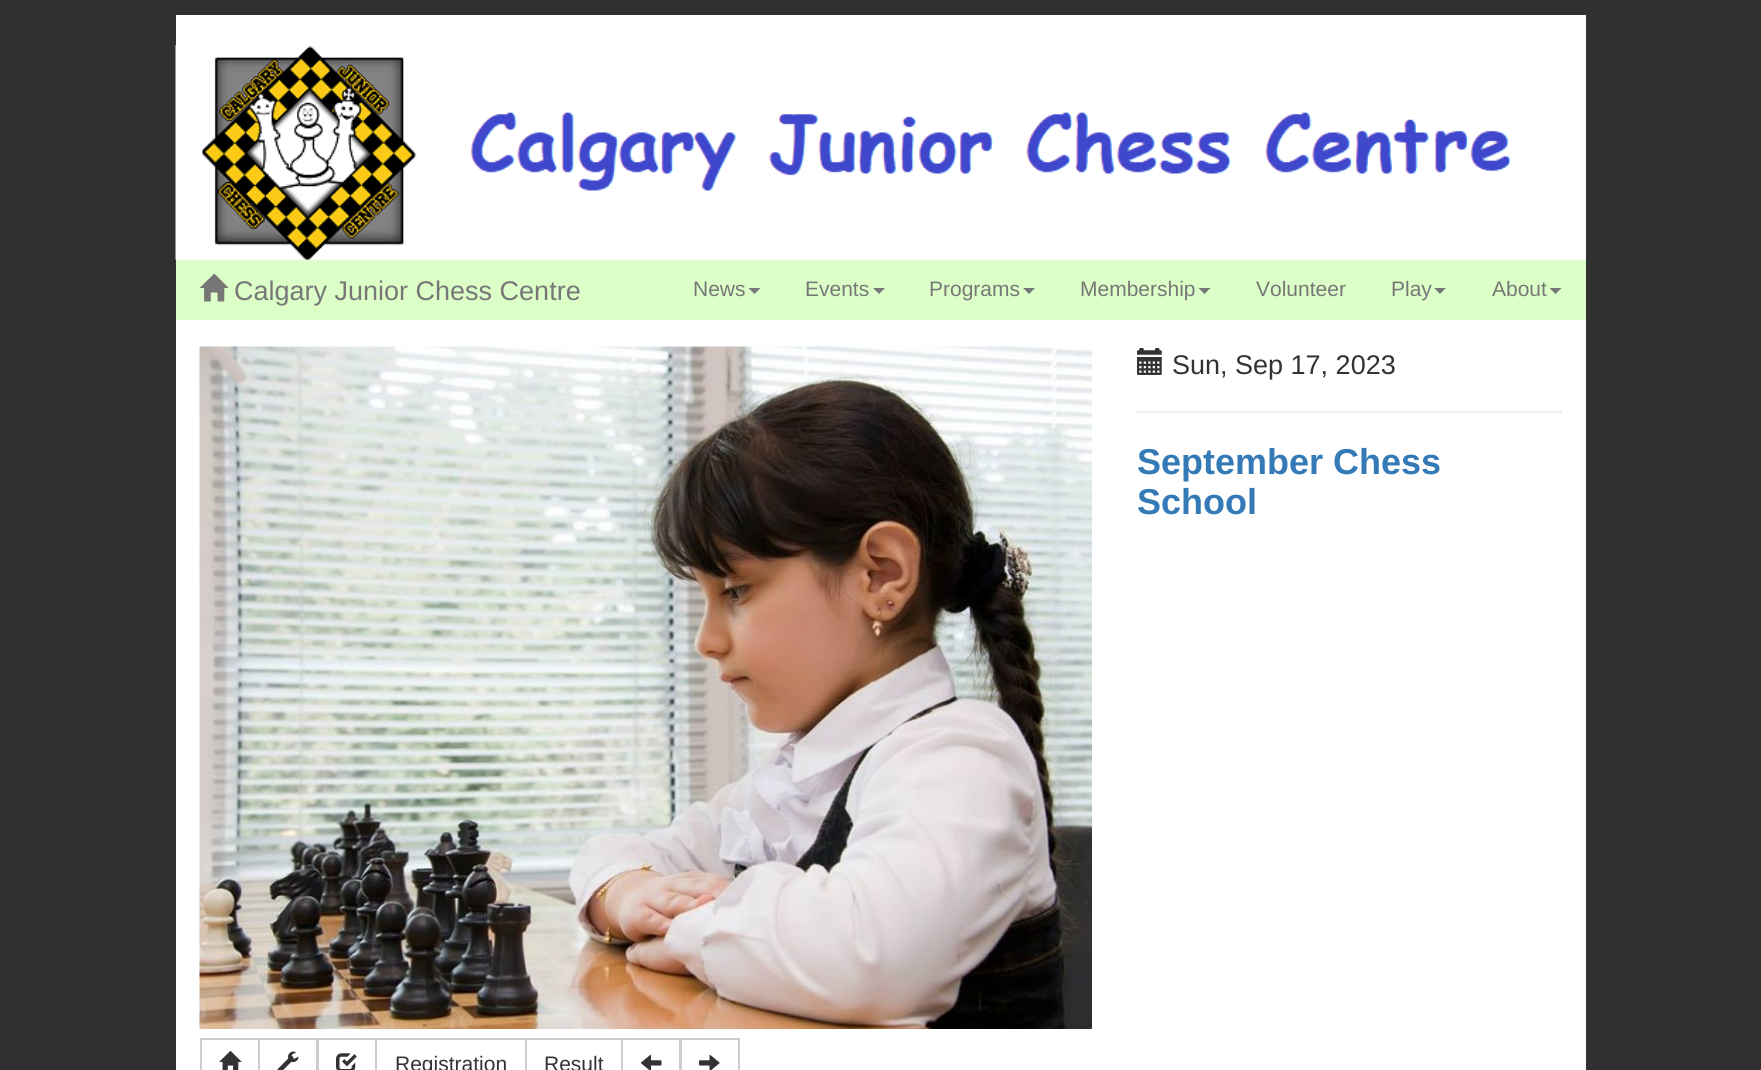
import math
import cairo

surface = cairo.ImageSurface(cairo.Format.RGB24, 1761, 1070)
ctx = cairo.Context(surface)
options = cairo.FontOptions()
options.set_hint_metrics(cairo.HintMetrics.OFF)
options.set_hint_style(cairo.HintStyle.NONE)
ctx.set_font_options(options)
ctx.set_miter_limit(4)


def ink(r, g, b):
    ctx.set_source_rgb(r / 255, g / 255, b / 255)


def write(x, y, s, family, size, color, bold=False, italic=False):
    ctx.select_font_face(family, cairo.FontSlant.ITALIC if italic else cairo.FontSlant.NORMAL, cairo.FontWeight.BOLD if bold else cairo.FontWeight.NORMAL)
    ctx.set_font_size(size)
    ink(*color)
    ctx.move_to(x, y)
    ctx.show_text(s)


def block(x, y, w, h, *color):
    ink(*color)
    ctx.rectangle(x, y, w, h)
    ctx.fill()


def paste(path, x, y, w, h):
    ctx.save()
    ctx.set_source_surface(cairo.ImageSurface.create_from_png(path), x, y)
    ctx.rectangle(x, y, w, h)
    ctx.fill()
    ctx.restore()


s1 = dict(family="Liberation Sans", size=27, color=(119, 119, 119))
s2 = dict(family="Liberation Sans", size=21, color=(119, 119, 119))
s3 = dict(family="Liberation Sans", size=27, color=(51, 51, 51))
s4 = dict(family="Liberation Sans", size=36, color=(51, 122, 183), bold=True)
s5 = dict(family="Liberation Sans", size=21, color=(51, 51, 51))

ink(48, 48, 48)
ctx.paint()
block(176, 15, 1410, 245, 255, 255, 255)
paste("pic1.png", 175, 45, 1336, 215)
block(176, 260, 1410, 60, 219, 255, 199)
paste("pic2.png", 199, 273, 30, 29)
write(234, 300, "Calgary Junior Chess Centre", **s1)
write(693, 296, "News", **s2)
ctx.new_path()
ctx.move_to(748.5, 288)
ctx.line_to(760.5, 288)
ctx.line_to(754.5, 294)
ctx.close_path()
ctx.fill()
write(805, 296, "Events", **s2)
ctx.new_path()
ctx.move_to(873, 288)
ctx.line_to(885, 288)
ctx.line_to(879, 294)
ctx.close_path()
ctx.fill()
write(929, 296, "Programs", **s2)
ctx.new_path()
ctx.move_to(1023, 288)
ctx.line_to(1035, 288)
ctx.line_to(1029, 294)
ctx.close_path()
ctx.fill()
write(1080, 296, "Membership", **s2)
ctx.new_path()
ctx.move_to(1198.5, 288)
ctx.line_to(1210.5, 288)
ctx.line_to(1204.5, 294)
ctx.close_path()
ctx.fill()
write(1256, 296, "Volunteer", **s2)
write(1391, 296, "Play", **s2)
ctx.new_path()
ctx.move_to(1434, 288)
ctx.line_to(1446, 288)
ctx.line_to(1440, 294)
ctx.close_path()
ctx.fill()
write(1492, 296, "About", **s2)
ctx.new_path()
ctx.move_to(1549.5, 288)
ctx.line_to(1561.5, 288)
ctx.line_to(1555.5, 294)
ctx.close_path()
ctx.fill()
block(176, 320, 1410, 750, 255, 255, 255)
paste("pic3.png", 199, 346, 893, 683)
paste("pic4.png", 1137, 348, 25, 27)
write(1172, 374, "Sun, Sep 17, 2023", **s3)
block(1137, 411, 425, 2, 238, 238, 238)
write(1137, 474, "September Chess", **s4)
write(1137, 514, "School", **s4)
ctx.rectangle(201, 1039, 58, 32)
ink(204, 204, 204)
ctx.stroke()
paste("pic5.png", 219, 1051, 23, 19)
ctx.rectangle(259, 1039, 58, 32)
ctx.stroke()
paste("pic6.png", 277, 1051, 22, 19)
ctx.rectangle(318, 1039, 58, 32)
ctx.stroke()
paste("pic7.png", 336, 1053, 21, 17)
ctx.rectangle(376, 1039, 150, 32)
ctx.stroke()
write(395, 1071, "Registration", **s5)
ctx.rectangle(526, 1039, 96, 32)
ink(204, 204, 204)
ctx.stroke()
write(544, 1071, "Result", **s5)
ctx.rectangle(622, 1039, 58, 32)
ink(204, 204, 204)
ctx.stroke()
paste("pic8.png", 640, 1054, 22, 16)
ctx.rectangle(681, 1039, 58, 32)
ctx.stroke()
paste("pic9.png", 699, 1054, 21, 16)
surface.write_to_png("screenshot.png")
